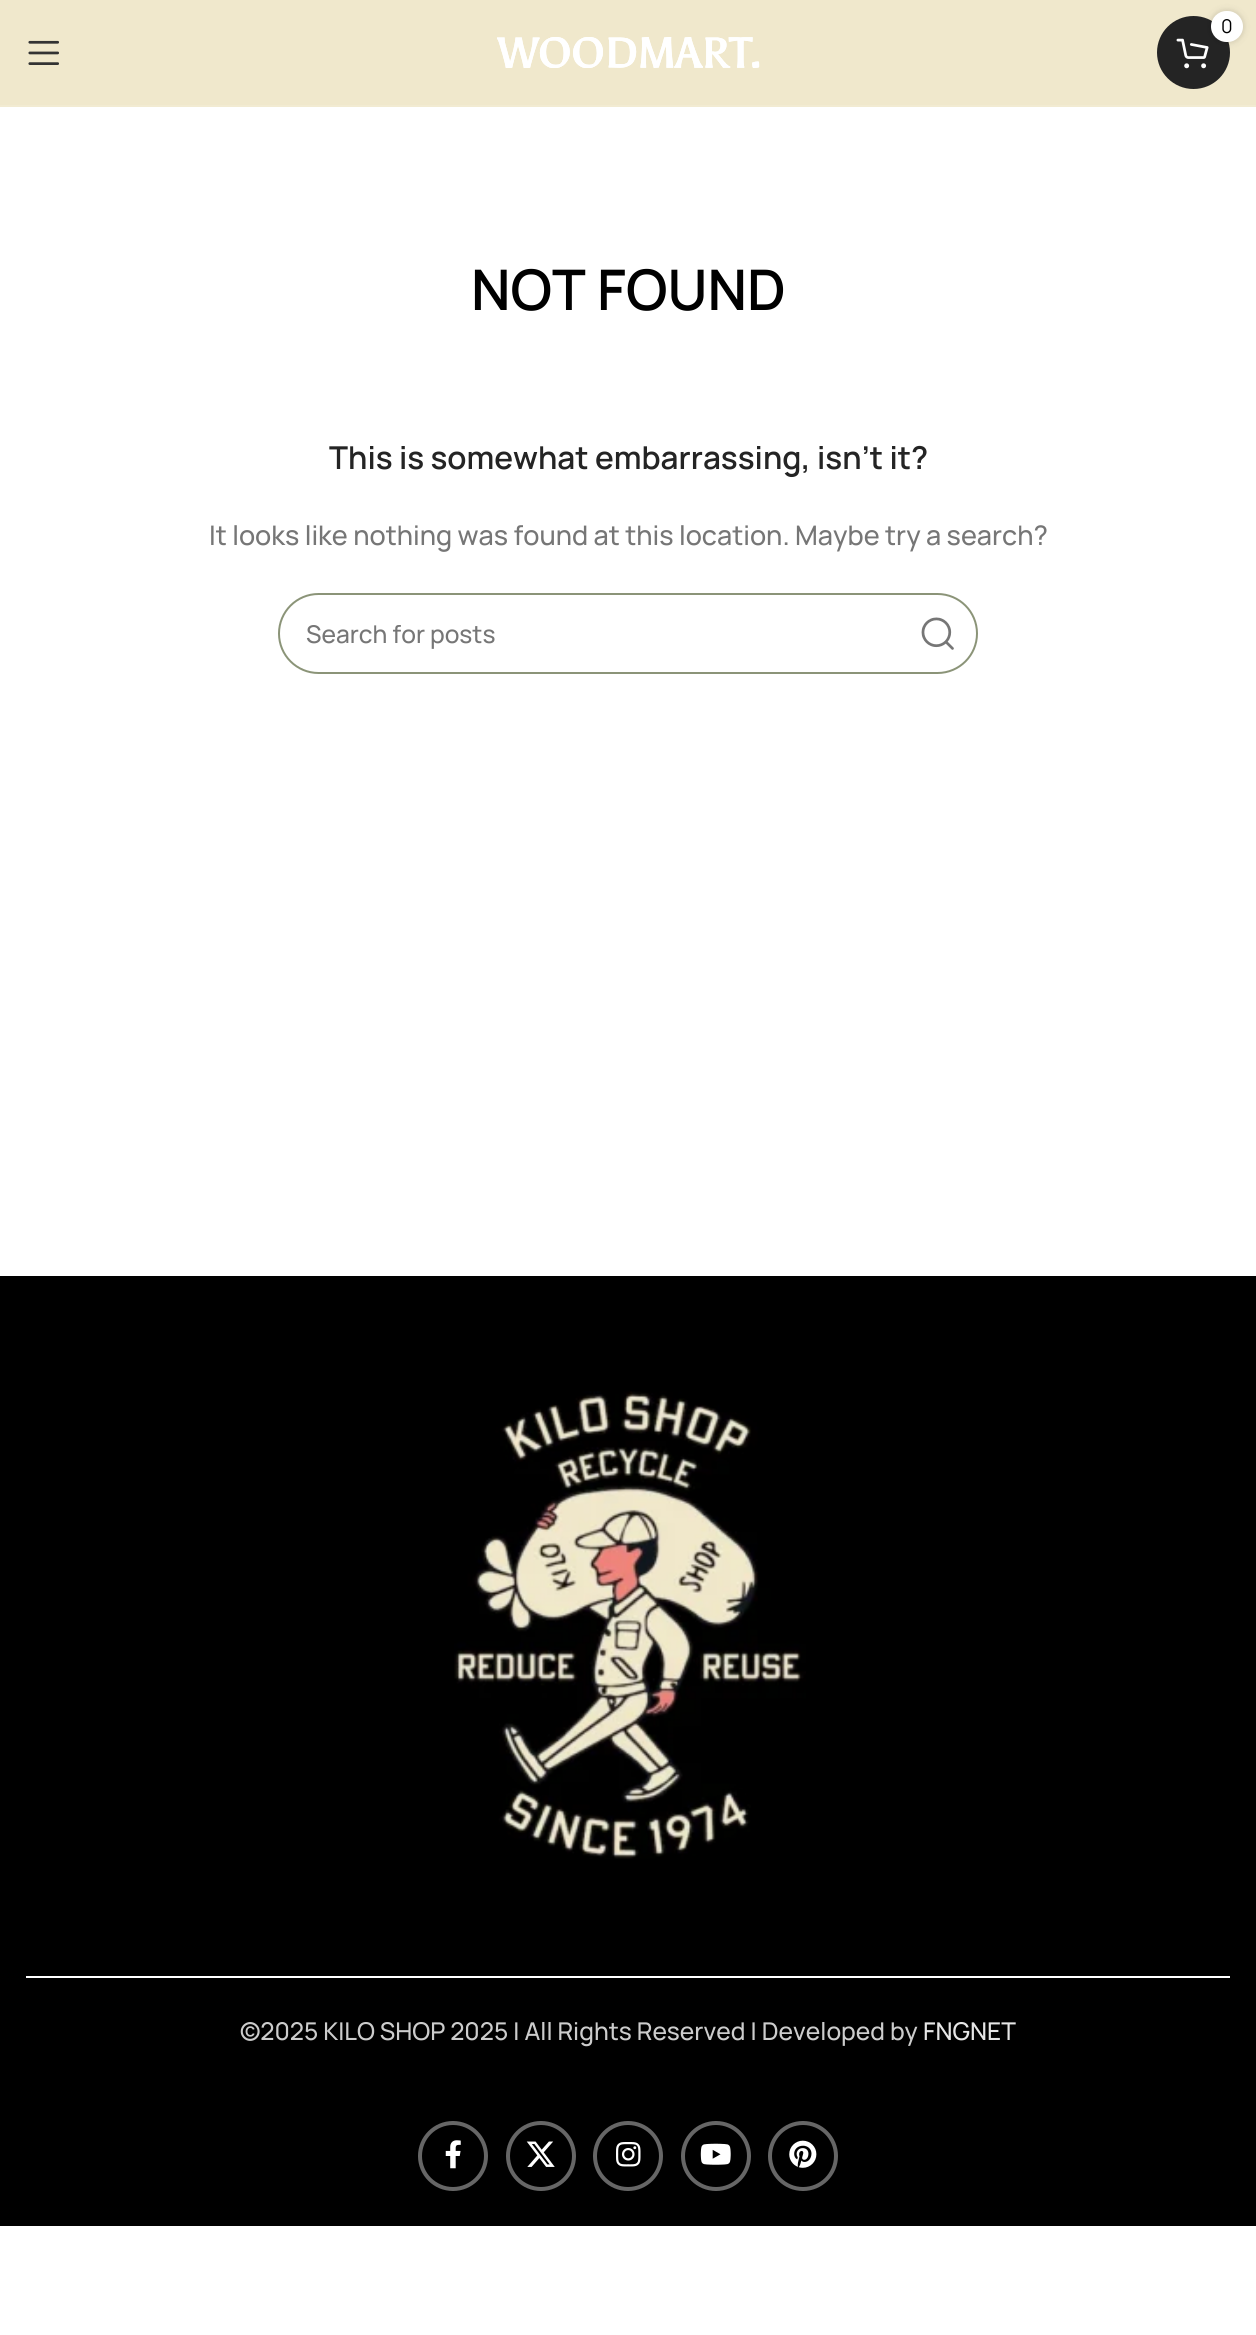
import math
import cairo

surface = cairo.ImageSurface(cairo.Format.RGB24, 1256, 2335)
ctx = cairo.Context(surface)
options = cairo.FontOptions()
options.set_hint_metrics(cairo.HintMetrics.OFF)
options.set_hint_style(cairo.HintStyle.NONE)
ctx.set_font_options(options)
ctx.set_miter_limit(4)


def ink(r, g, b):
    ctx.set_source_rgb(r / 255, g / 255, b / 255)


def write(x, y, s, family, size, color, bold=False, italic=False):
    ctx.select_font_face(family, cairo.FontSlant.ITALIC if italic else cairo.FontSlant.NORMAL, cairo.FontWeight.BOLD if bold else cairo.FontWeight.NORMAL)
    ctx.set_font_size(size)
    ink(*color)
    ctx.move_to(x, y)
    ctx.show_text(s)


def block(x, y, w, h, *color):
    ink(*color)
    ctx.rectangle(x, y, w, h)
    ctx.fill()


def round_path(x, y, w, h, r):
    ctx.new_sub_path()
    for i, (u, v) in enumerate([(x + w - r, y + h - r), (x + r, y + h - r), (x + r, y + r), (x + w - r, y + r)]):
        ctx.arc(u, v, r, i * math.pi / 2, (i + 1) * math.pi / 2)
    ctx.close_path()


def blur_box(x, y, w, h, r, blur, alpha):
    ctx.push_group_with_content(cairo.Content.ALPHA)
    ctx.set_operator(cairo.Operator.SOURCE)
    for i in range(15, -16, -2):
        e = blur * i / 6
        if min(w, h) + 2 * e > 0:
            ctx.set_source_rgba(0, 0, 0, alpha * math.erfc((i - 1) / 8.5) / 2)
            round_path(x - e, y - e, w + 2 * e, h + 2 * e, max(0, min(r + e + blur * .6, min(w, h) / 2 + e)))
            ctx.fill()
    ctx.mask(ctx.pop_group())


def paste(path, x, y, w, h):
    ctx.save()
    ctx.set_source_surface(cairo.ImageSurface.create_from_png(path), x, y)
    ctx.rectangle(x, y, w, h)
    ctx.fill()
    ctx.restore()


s1 = dict(family="Manrope", size=19, color=(0, 0, 0))
s2 = dict(family="Manrope SemiBold", size=56, color=(0, 0, 0))
s3 = dict(family="Manrope SemiBold", size=31.5, color=(36, 36, 36))
s4 = dict(family="Manrope Medium", size=26.95, color=(118, 118, 118))
s5 = dict(family="Manrope Medium", size=24.5, color=(118, 118, 118))
s6 = dict(family="Manrope Medium", size=24.5, color=(204, 204, 204))
s7 = dict(family="Manrope Medium", size=24.5, color=(230, 230, 230))

ink(255, 255, 255)
ctx.paint()
block(0, 0, 1256, 105, 240, 232, 204)
block(0, 105, 1256, 2, 242, 235, 210)
ink(36, 36, 36)
ctx.arc(1193.5, 52.5, 36.5, 0, 2 * math.pi)
ctx.fill()
paste("pic1.png", 1176, 38, 33, 31)
ink(0, 0, 0)
blur_box(1211, 11, 32, 31, 15.5, 3.5, 0.17)
ink(255, 255, 255)
round_path(1211, 11, 32, 31, 15.5)
ctx.fill()
write(1221, 33, "0", **s1)
paste("pic2.png", 28, 40, 31, 25)
paste("pic3.png", 497, 37, 263, 31)
write(471, 310, "NOT FOUND", **s2)
write(329, 469, "This is somewhat embarrassing, isn’t it?", **s3)
write(209, 545, "It looks like nothing was found at this location. Maybe try a search?", **s4)
round_path(279, 594, 698, 79, 39.5)
ink(139, 148, 120)
ctx.stroke()
write(306, 643, "Search for posts", **s5)
paste("pic4.png", 921, 617, 33, 33)
block(0, 1276, 1256, 950, 0, 0, 0)
paste("pic5.png", 454, 1391, 352, 468)
block(26, 1976, 1204, 2, 255, 255, 255)
write(240, 2040, "©2025 KILO SHOP 2025 | All Rights Reserved | Developed by", **s6)
write(923, 2040, "FNGNET", **s7)
ctx.new_path()
ctx.arc(453, 2156, 33, 0, 2 * math.pi)
ink(102, 102, 102)
ctx.set_line_width(4)
ctx.stroke()
paste("pic6.png", 445, 2140, 16, 29)
ctx.arc(541, 2156, 33, 0, 2 * math.pi)
ctx.stroke()
paste("pic7.png", 526, 2141, 29, 26)
ctx.arc(628, 2156, 33, 0, 2 * math.pi)
ctx.stroke()
paste("pic8.png", 616, 2142, 25, 25)
ctx.arc(716, 2156, 33, 0, 2 * math.pi)
ctx.stroke()
paste("pic9.png", 700, 2143, 31, 22)
ctx.arc(803, 2156, 33, 0, 2 * math.pi)
ctx.stroke()
paste("pic10.png", 789, 2140, 28, 28)
surface.write_to_png("screenshot.png")
